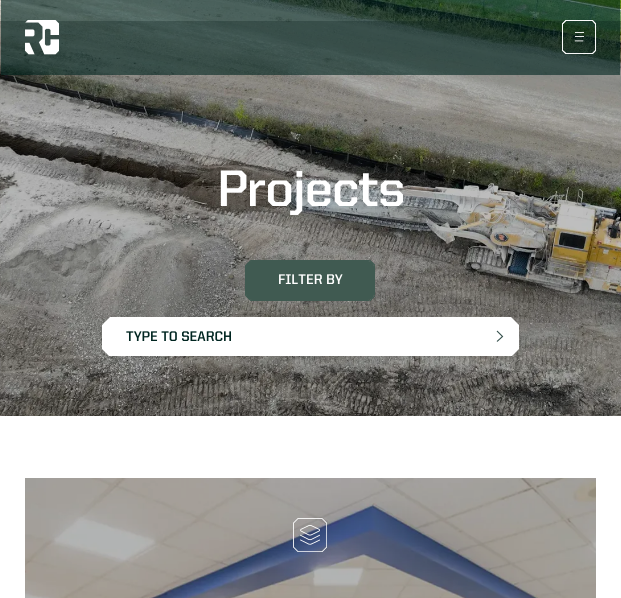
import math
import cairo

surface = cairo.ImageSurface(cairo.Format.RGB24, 621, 598)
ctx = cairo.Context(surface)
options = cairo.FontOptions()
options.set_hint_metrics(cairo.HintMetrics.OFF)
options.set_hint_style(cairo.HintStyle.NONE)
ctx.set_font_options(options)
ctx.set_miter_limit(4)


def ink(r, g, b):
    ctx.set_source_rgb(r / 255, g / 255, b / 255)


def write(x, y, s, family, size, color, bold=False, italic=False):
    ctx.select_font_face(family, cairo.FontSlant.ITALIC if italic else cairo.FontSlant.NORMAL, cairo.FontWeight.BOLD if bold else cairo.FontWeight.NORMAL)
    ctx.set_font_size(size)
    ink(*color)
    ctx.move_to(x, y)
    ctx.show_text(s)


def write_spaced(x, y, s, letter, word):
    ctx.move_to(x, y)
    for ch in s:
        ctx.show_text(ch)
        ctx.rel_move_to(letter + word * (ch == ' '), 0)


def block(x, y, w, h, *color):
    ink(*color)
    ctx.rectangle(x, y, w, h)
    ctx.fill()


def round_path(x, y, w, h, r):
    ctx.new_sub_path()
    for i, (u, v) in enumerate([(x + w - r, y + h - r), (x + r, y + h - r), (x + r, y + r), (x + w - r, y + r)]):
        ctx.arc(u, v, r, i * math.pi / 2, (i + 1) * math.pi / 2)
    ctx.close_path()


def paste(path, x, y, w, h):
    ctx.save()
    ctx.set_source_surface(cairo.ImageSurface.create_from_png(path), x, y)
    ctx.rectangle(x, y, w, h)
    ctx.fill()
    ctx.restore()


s1 = dict(family="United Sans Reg", size=14, color=(255, 255, 255), bold=True)
s2 = dict(family="United Sans Reg", size=14, color=(0, 37, 32), bold=True)

ink(255, 255, 255)
ctx.paint()
paste("pic3.png", 0, 0, 621, 416)
ctx.set_source_rgba(0, 0.145, 0.125, 0.6)
ctx.rectangle(1, 0, 619, 75)
ctx.fill()
paste("pic1.png", 25, 20, 34, 35)
ctx.new_path()
ctx.move_to(562.5, 50.5)
ctx.line_to(562.5, 24)
ctx.line_to(566, 20.5)
ctx.line_to(592.5, 20.5)
ctx.line_to(595.5, 24)
ctx.line_to(595.5, 50.5)
ctx.line_to(592.5, 53.5)
ctx.line_to(566, 53.5)
ctx.close_path()
ink(255, 255, 255)
ctx.set_line_width(0.9)
ctx.stroke()
paste("pic2.png", 562, 20, 34, 34)
ctx.select_font_face("United Sans Reg", cairo.FontSlant.NORMAL, cairo.FontWeight.BOLD)
ctx.set_font_size(51.5)
write_spaced(217, 206, "Projects", -1.5, 0)
ink(64, 90, 81)
round_path(246, 261, 128, 39, 6)
ctx.fill()
ctx.save()
ctx.rectangle(245, 260, 6, 6)
ctx.clip()
ctx.new_path()
ctx.move_to(251.5, 259)
ctx.line_to(252.5, 260)
ctx.line_to(245.5, 267)
ctx.line_to(244.5, 266)
ctx.close_path()
ctx.fill()
ctx.restore()
block(251, 260, 118, 1, 64, 90, 81)
ctx.save()
ctx.rectangle(369, 260, 6, 6)
ctx.clip()
ctx.new_path()
ctx.move_to(368.5, 260)
ctx.line_to(369.5, 259)
ctx.line_to(376.5, 266)
ctx.line_to(375.5, 267)
ctx.close_path()
ctx.fill()
ctx.restore()
block(245, 266, 1, 29, 64, 90, 81)
write(278, 284, "FILTER BY", **s1)
block(374, 266, 1, 29, 64, 90, 81)
ctx.save()
ctx.rectangle(245, 295, 6, 6)
ctx.clip()
ctx.new_path()
ctx.move_to(244.5, 295)
ctx.line_to(245.5, 294.5)
ctx.line_to(252.5, 301.5)
ctx.line_to(251.5, 302)
ctx.close_path()
ctx.fill()
ctx.restore()
block(251, 300, 118, 1, 64, 90, 81)
ctx.save()
ctx.rectangle(369, 295, 6, 6)
ctx.clip()
ctx.new_path()
ctx.move_to(375.5, 294.5)
ctx.line_to(376.5, 295)
ctx.line_to(369.5, 302)
ctx.line_to(368.5, 301.5)
ctx.close_path()
ctx.fill()
ctx.restore()
ink(255, 255, 255)
ctx.new_path()
ctx.move_to(102, 349)
ctx.line_to(102, 325)
ctx.line_to(110, 317)
ctx.line_to(511, 317)
ctx.line_to(519, 325)
ctx.line_to(519, 349)
ctx.line_to(512, 356)
ctx.line_to(109, 356)
ctx.close_path()
ctx.fill()
write(126, 341, "TYPE TO SEARCH", **s2)
ctx.new_path()
ctx.move_to(497, 331)
ctx.line_to(502.5, 336.5)
ctx.line_to(497, 341.5)
ink(52, 79, 75)
ctx.set_line_width(1.1)
ctx.stroke()
paste("pic4.png", 25, 478, 571, 120)
paste("pic5.png", 293, 518, 34, 34)
surface.write_to_png("screenshot.png")
